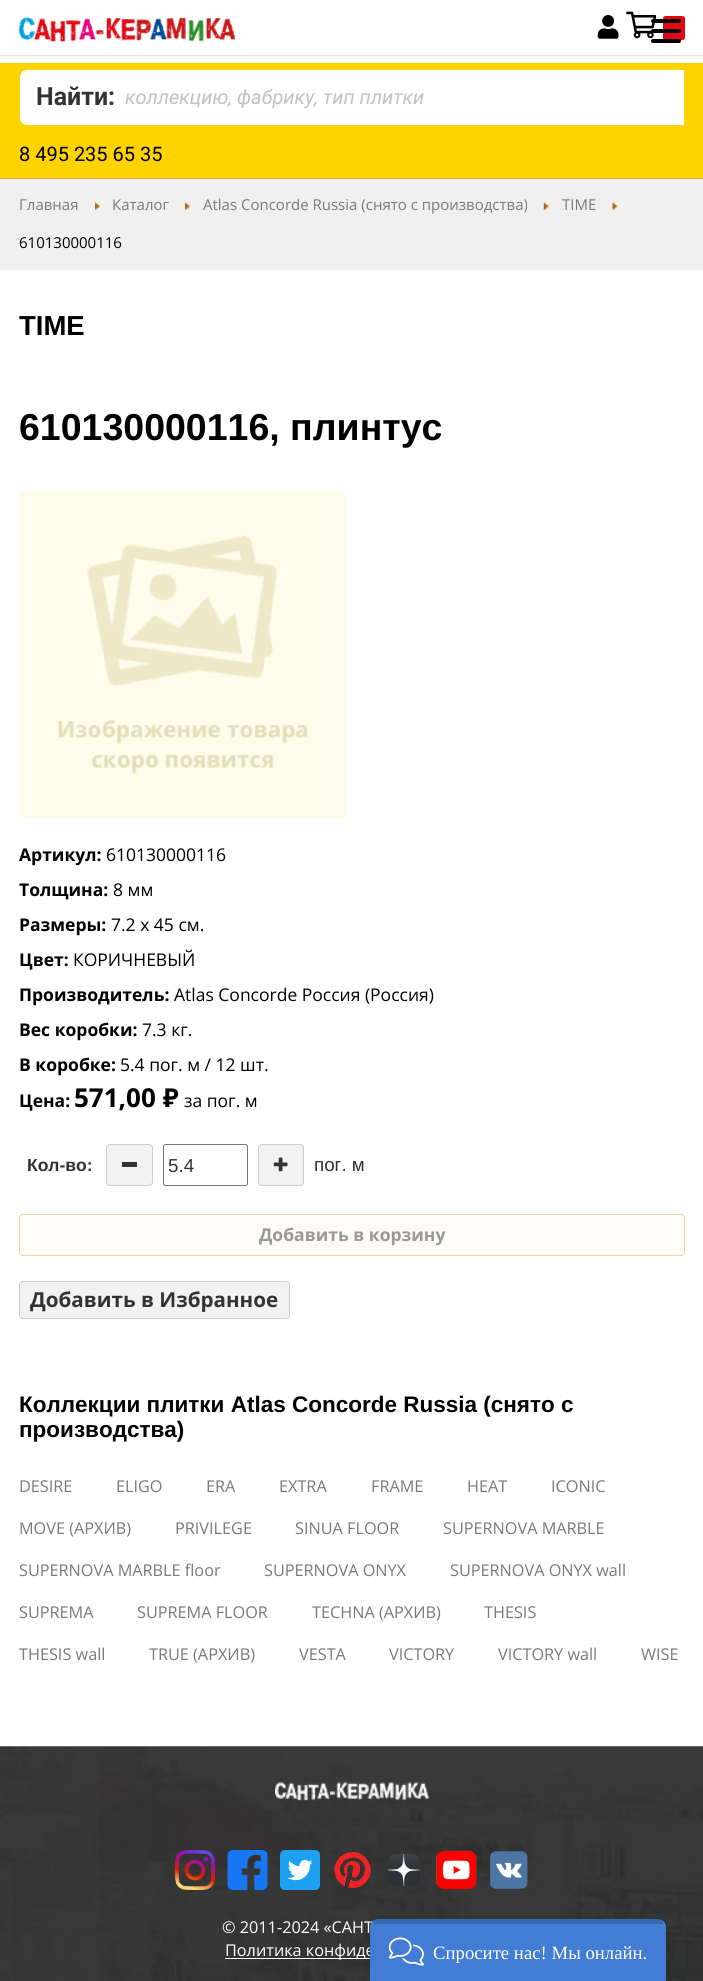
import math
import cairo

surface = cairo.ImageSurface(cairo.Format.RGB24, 703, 1981)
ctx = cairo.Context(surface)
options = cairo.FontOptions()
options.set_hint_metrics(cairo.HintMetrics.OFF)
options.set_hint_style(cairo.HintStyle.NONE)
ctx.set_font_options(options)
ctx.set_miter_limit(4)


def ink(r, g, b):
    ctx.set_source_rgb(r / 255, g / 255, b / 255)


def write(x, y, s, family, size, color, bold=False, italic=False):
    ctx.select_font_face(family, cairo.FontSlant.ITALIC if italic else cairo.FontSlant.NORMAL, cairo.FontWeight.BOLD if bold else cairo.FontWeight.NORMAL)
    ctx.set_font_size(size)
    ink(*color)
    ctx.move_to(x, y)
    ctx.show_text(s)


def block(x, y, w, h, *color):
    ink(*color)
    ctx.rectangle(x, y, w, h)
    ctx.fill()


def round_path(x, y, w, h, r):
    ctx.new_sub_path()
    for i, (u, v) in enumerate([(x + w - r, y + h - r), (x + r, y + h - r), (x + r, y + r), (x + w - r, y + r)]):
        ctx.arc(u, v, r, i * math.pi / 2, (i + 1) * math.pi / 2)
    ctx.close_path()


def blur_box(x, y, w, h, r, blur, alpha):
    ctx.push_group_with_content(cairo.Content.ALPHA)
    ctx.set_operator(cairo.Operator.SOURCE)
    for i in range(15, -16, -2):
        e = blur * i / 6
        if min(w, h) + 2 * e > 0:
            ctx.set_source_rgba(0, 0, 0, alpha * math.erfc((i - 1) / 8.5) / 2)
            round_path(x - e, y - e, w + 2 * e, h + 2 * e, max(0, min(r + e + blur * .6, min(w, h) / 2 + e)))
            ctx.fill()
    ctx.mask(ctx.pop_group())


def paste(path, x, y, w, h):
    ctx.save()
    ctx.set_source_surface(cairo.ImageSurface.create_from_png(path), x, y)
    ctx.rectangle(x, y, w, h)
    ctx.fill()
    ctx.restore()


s1 = dict(family="Roboto", size=25, color=(51, 51, 51), bold=True)
s2 = dict(family="Roboto", size=20, color=(194, 194, 194), italic=True)
s3 = dict(family="Roboto", size=20, color=(0, 0, 0))
s4 = dict(family="Open Sans", size=15, color=(121, 121, 121))
s5 = dict(family="Open Sans", size=15, color=(0, 0, 0))
s6 = dict(family="Liberation Sans", size=27.5, color=(0, 0, 0), bold=True)
s7 = dict(family="Liberation Sans", size=37.5, color=(0, 0, 0), bold=True)
s8 = dict(family="Open Sans", size=17.5, color=(0, 0, 0), bold=True)
s9 = dict(family="Open Sans", size=17.5, color=(0, 0, 0))
s10 = dict(family="Noto Sans", size=26, color=(0, 0, 0), bold=True)
s11 = dict(family="Liberation Sans", size=17.5, color=(51, 51, 51), bold=True)
s12 = dict(family="Liberation Sans", size=18.75, color=(51, 51, 51))
s13 = dict(family="Open Sans", size=17.5, color=(153, 153, 153), bold=True)
s14 = dict(family="Open Sans", size=20.6, color=(51, 51, 51), bold=True)
s15 = dict(family="Liberation Sans", size=22.5, color=(0, 0, 0), bold=True)
s16 = dict(family="Open Sans", size=16.25, color=(121, 121, 121))
s17 = dict(family="Open Sans", size=16.25, color=(255, 255, 255))
s18 = dict(family="Liberation Serif", size=18.75, color=(255, 255, 255))

ink(255, 255, 255)
ctx.paint()
block(0, 178, 703, 1, 222, 163, 88)
block(0, 55, 703, 1, 225, 225, 225)
paste("pic1.png", 18, 17, 217, 25)
paste("pic2.png", 597, 15, 22, 24)
paste("pic3.png", 626, 11, 30, 28)
ink(227, 6, 19)
round_path(663, 16, 22, 24, 2.5)
ctx.fill()
ink(0, 0, 0)
round_path(651, 19, 30, 4, 2)
ctx.fill()
round_path(651, 29, 30, 4, 2)
ctx.fill()
round_path(651, 39, 30, 4, 2)
ctx.fill()
block(0, 63, 703, 115, 254, 211, 0)
ink(255, 255, 255)
ctx.new_path()
ctx.move_to(26, 70)
ctx.line_to(684, 70)
ctx.line_to(684, 125)
ctx.line_to(26, 125)
ctx.curve_to(22.5, 125, 20, 122.5, 20, 119)
ctx.line_to(20, 76)
ctx.curve_to(20, 72.5, 22.5, 70, 26, 70)
ctx.close_path()
ctx.fill()
ctx.new_path()
ctx.move_to(27, 69.5)
ctx.line_to(684.5, 69.5)
ctx.line_to(684.5, 125.5)
ctx.line_to(27, 125.5)
ctx.curve_to(23, 125.5, 19.5, 122, 19.5, 118)
ctx.line_to(19.5, 77)
ctx.curve_to(19.5, 73, 23, 69.5, 27, 69.5)
ctx.close_path()
ink(254, 211, 0)
ctx.set_line_width(1)
ctx.stroke()
write(36, 105, "Найти:", **s1)
write(125, 104, "коллекцию, фабрику, тип плитки", **s2)
write(19, 161, "8 495 235 65 35", **s3)
block(0, 179, 703, 91, 240, 240, 240)
write(19, 210, "Главная", **s4)
paste("pic4.png", 95, 202, 5, 8)
write(112, 210, "Каталог", **s4)
paste("pic4.png", 185, 202, 5, 8)
write(203, 210, "Atlas Concorde Russia (снято с производства)", **s4)
paste("pic5.png", 543, 202, 6, 8)
write(562, 210, "TIME", **s4)
paste("pic6.png", 612, 202, 6, 8)
write(19, 248, "610130000116", **s5)
write(19, 335, "TIME", **s6)
write(19, 440, "610130000116, плинтус", **s7)
paste("pic7.png", 19, 491, 328, 328)
write(19, 861, "Артикул:", **s8)
write(106, 861, "610130000116", **s9)
write(19, 896, "Толщина:", **s8)
write(113, 896, "8 мм", **s9)
write(19, 931, "Размеры:", **s8)
write(111, 931, "7.2 x 45 см.", **s9)
write(19, 966, "Цвет:", **s8)
write(73, 966, "КОРИЧНЕВЫЙ", **s9)
write(19, 1001, "Производитель:", **s8)
write(174, 1001, "Atlas Concorde Россия (Россия)", **s9)
write(19, 1036, "Вес коробки:", **s8)
write(142, 1036, "7.3 кг.", **s9)
write(19, 1071, "В коробке:", **s8)
write(120, 1071, "5.4 пог. м / 12 шт.", **s9)
write(19, 1107, "Цена:", **s8)
write(74, 1107, "571,00", **s10)
write(163, 1107, "₽", **s10)
write(184, 1107, "за пог. м", **s9)
write(27, 1171, "Кол-во:", **s11)
ink(242, 242, 242)
round_path(106.5, 1144.5, 46, 41, 3.5)
ctx.fill_preserve()
ink(205, 205, 205)
ctx.stroke()
block(122, 1162, 15, 5, 51, 51, 51)
round_path(163.5, 1144.5, 84, 41, 2)
ink(118, 118, 118)
ctx.stroke()
write(168, 1172, "5.4", **s12)
ink(242, 242, 242)
round_path(258.5, 1144.5, 45, 41, 3.5)
ctx.fill_preserve()
ink(205, 205, 205)
ctx.stroke()
paste("pic8.png", 273, 1157, 15, 15)
write(314, 1171, "пог. м", **s12)
ink(253, 251, 247)
round_path(19.5, 1214.5, 665, 41, 3.5)
ctx.fill_preserve()
ink(239, 209, 172)
ctx.stroke()
write(259, 1241, "Добавить в корзину", **s13)
ink(242, 242, 242)
round_path(19.5, 1281.5, 270, 37, 3.5)
ctx.fill_preserve()
ink(205, 205, 205)
ctx.stroke()
write(30, 1307, "Добавить в Избранное", **s14)
write(19, 1412, "Коллекции плитки Atlas Concorde Russia (снято с", **s15)
write(19, 1437, "производства)", **s15)
write(19, 1492, "DESIRE", **s16)
write(116, 1492, "ELIGO", **s16)
write(206, 1492, "ERA", **s16)
write(279, 1492, "EXTRA", **s16)
write(371, 1492, "FRAME", **s16)
write(467, 1492, "HEAT", **s16)
write(551, 1492, "ICONIC", **s16)
write(19, 1534, "MOVE (АРХИВ)", **s16)
write(175, 1534, "PRIVILEGE", **s16)
write(295, 1534, "SINUA FLOOR", **s16)
write(443, 1534, "SUPERNOVA MARBLE", **s16)
write(19, 1576, "SUPERNOVA MARBLE floor", **s16)
write(264, 1576, "SUPERNOVA ONYX", **s16)
write(450, 1576, "SUPERNOVA ONYX wall", **s16)
write(19, 1618, "SUPREMA", **s16)
write(137, 1618, "SUPREMA FLOOR", **s16)
write(312, 1618, "TECHNA (АРХИВ)", **s16)
write(484, 1618, "THESIS", **s16)
write(19, 1660, "THESIS wall", **s16)
write(149, 1660, "TRUE (АРХИВ)", **s16)
write(299, 1660, "VESTA", **s16)
write(389, 1660, "VICTORY", **s16)
write(498, 1660, "VICTORY wall", **s16)
write(641, 1660, "WISE", **s16)
paste("pic9.png", 0, 1746, 703, 235)
paste("pic10.png", 275, 1782, 154, 19)
paste("pic11.png", 175, 1850, 40, 40)
paste("pic12.png", 227, 1850, 41, 40)
paste("pic13.png", 280, 1850, 40, 40)
paste("pic14.png", 334, 1852, 37, 36)
paste("pic15.png", 387, 1854, 33, 33)
paste("pic16.png", 436, 1850, 41, 40)
paste("pic17.png", 490, 1851, 38, 38)
write(222, 1933, "© 2011-2024 «САНТ", **s17)
block(225, 1958, 145, 1, 255, 255, 255)
write(225, 1956, "Политика конфиде", **s17)
ink(0, 0, 0)
blur_box(370, 1919, 296, 62, 8, 3, 0.2)
ink(66, 124, 212)
ctx.new_path()
ctx.move_to(378, 1919)
ctx.line_to(658, 1919)
ctx.curve_to(662.5, 1919, 666, 1922.5, 666, 1927)
ctx.line_to(666, 1981)
ctx.line_to(370, 1981)
ctx.line_to(370, 1927)
ctx.curve_to(370, 1922.5, 373.5, 1919, 378, 1919)
ctx.close_path()
ctx.fill()
ctx.set_source_rgba(0, 0, 0, 0.15)
ctx.rectangle(374, 1919, 289, 5)
ctx.fill()
paste("pic18.png", 388, 1937, 36, 29)
write(433, 1959, "Спросите нас! Мы онлайн.", **s18)
surface.write_to_png("screenshot.png")
